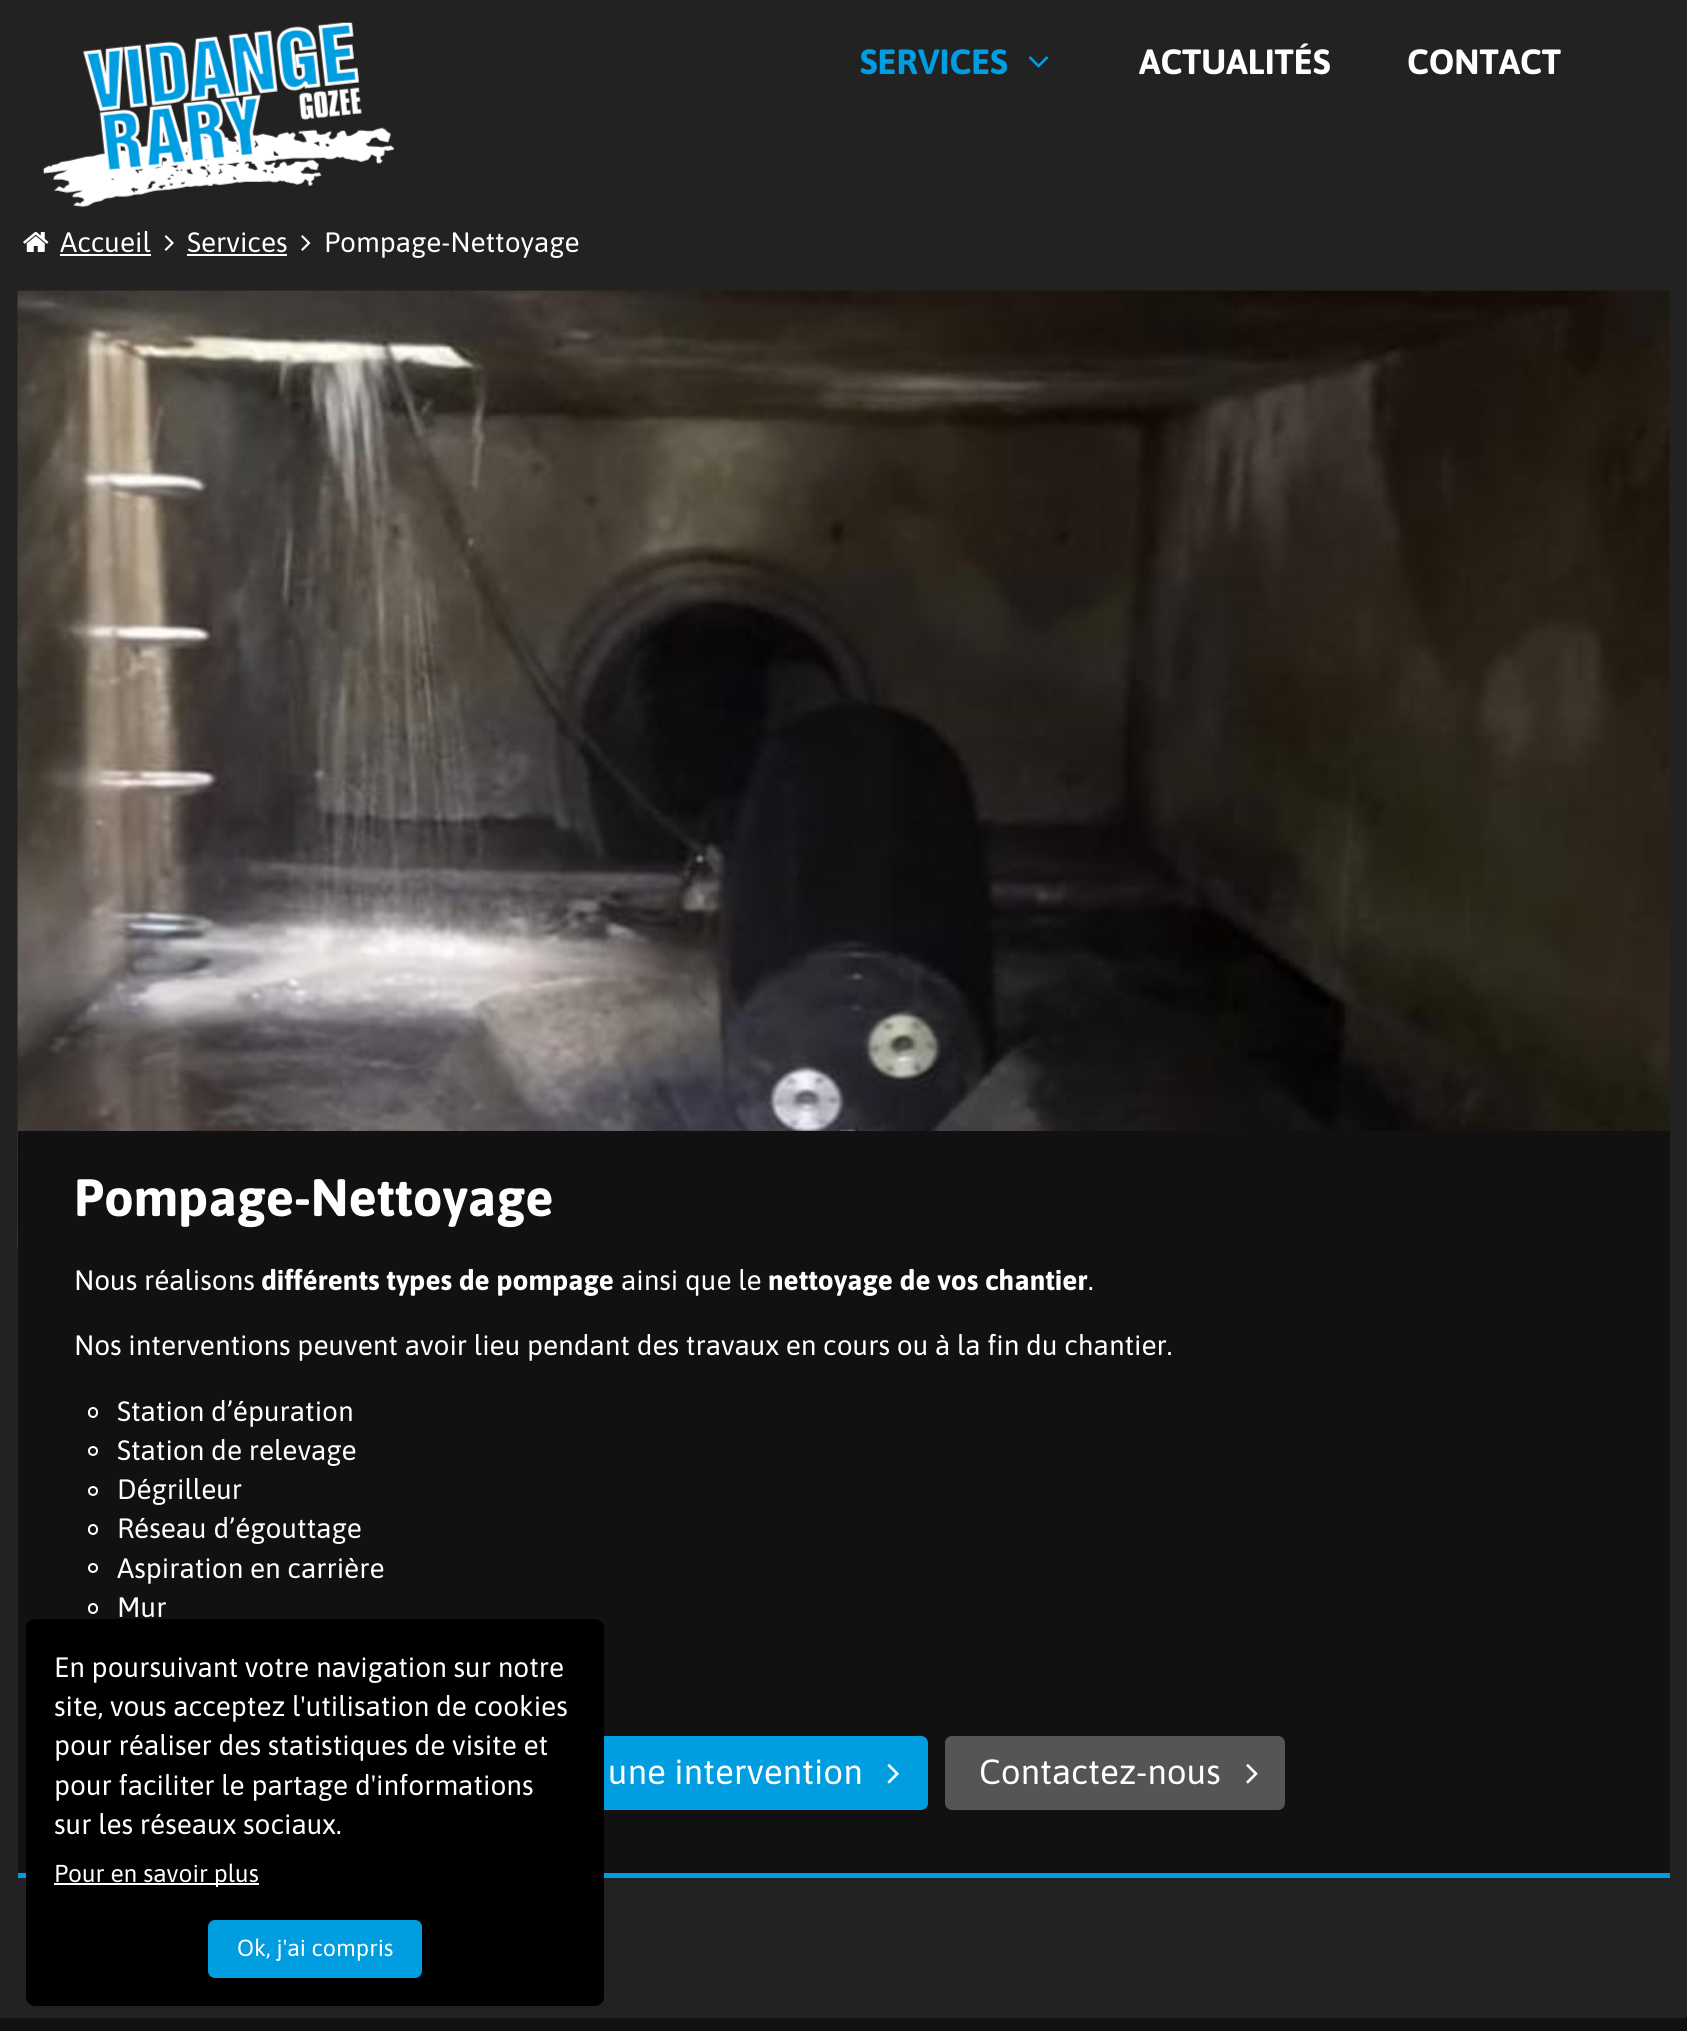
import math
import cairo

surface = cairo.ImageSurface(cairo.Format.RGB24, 1687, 2031)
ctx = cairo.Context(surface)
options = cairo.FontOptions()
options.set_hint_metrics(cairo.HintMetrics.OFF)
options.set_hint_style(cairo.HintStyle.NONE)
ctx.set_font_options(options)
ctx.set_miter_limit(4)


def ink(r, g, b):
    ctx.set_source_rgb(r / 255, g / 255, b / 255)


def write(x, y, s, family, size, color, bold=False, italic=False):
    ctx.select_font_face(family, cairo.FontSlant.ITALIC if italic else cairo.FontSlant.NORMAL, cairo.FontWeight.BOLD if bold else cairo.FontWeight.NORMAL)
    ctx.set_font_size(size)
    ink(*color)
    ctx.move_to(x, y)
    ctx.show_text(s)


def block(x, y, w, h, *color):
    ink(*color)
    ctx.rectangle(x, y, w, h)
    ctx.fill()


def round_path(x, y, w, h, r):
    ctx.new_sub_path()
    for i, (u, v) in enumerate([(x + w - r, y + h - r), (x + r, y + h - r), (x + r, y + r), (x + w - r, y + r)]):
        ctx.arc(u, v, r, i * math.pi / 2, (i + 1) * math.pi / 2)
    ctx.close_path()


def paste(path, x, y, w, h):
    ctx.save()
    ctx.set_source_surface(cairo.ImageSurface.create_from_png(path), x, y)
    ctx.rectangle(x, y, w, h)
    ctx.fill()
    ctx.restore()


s1 = dict(family="Asap", size=35, color=(0, 157, 224), bold=True)
s2 = dict(family="Asap", size=35, color=(255, 255, 255), bold=True)
s3 = dict(family="Asap", size=28, color=(255, 255, 255))
s4 = dict(family="Asap", size=52.5, color=(255, 255, 255), bold=True)
s5 = dict(family="Asap", size=28, color=(255, 255, 255), bold=True)
s6 = dict(family="Asap", size=35, color=(255, 255, 255))
s7 = dict(family="Asap", size=24.5, color=(255, 255, 255))
s8 = dict(family="Asap", size=23.25, color=(255, 255, 255))

ink(34, 34, 34)
ctx.paint()
paste("pic1.png", 43, 22, 351, 185)
write(860, 74, "SERVICES", **s1)
paste("pic2.png", 1028, 56, 21, 12)
write(1139, 74, "ACTUALITÉS", **s2)
write(1407, 74, "CONTACT", **s2)
paste("pic3.png", 23, 232, 26, 20)
write(60, 252, "Accueil", **s3)
block(60, 254, 91, 2, 255, 255, 255)
paste("pic4.png", 164, 235, 10, 16)
write(187, 252, "Services", **s3)
block(187, 254, 100, 2, 255, 255, 255)
paste("pic5.png", 301, 235, 10, 16)
write(324, 252, "Pompage-Nettoyage", **s3)
paste("pic6.png", 17, 290, 1653, 958)
block(18, 1131, 1652, 742, 17, 17, 17)
block(18, 1873, 1652, 5, 0, 157, 224)
write(74, 1216, "Pompage-Nettoyage", **s4)
write(74, 1290, "Nous réalisons", **s3)
write(261, 1290, "différents types de pompage", **s5)
write(621, 1290, "ainsi que le", **s3)
write(768, 1290, "nettoyage de vos chantier", **s5)
write(1088, 1290, ".", **s3)
write(74, 1355, "Nos interventions peuvent avoir lieu pendant des travaux en cours ou à la fin du chantier.", **s3)
round_path(89, 1408, 8, 9, 4)
ctx.stroke()
write(117, 1421, "Station d’épuration", **s3)
ctx.new_path()
ctx.arc(93, 1451, 4, 0, 2 * math.pi)
ctx.stroke()
write(117, 1460, "Station de relevage", **s3)
ctx.new_path()
ctx.arc(93, 1491, 4, 0, 2 * math.pi)
ctx.stroke()
write(117, 1499, "Dégrilleur", **s3)
round_path(89, 1525, 8, 9, 4)
ctx.stroke()
write(117, 1538, "Réseau d’égouttage", **s3)
ctx.new_path()
ctx.arc(93, 1568, 4, 0, 2 * math.pi)
ctx.stroke()
write(117, 1578, "Aspiration en carrière", **s3)
round_path(89, 1604, 8, 9, 4)
ctx.stroke()
write(117, 1617, "Mur", **s3)
ink(0, 157, 224)
round_path(403, 1736, 525, 74, 7)
ctx.fill()
write(608, 1784, "une intervention", **s6)
paste("pic7.png", 887, 1764, 12, 20)
ink(85, 85, 85)
round_path(945, 1736, 340, 74, 7)
ctx.fill()
write(979, 1784, "Contactez-nous", **s6)
paste("pic8.png", 1246, 1764, 12, 20)
ink(0, 0, 0)
round_path(26, 1619, 578, 387, 9)
ctx.fill()
write(54, 1677, "En poursuivant votre navigation sur notre", **s3)
write(54, 1716, "site, vous acceptez l'utilisation de cookies", **s3)
write(54, 1755, "pour réaliser des statistiques de visite et", **s3)
write(54, 1795, "pour faciliter le partage d'informations", **s3)
write(54, 1834, "sur les réseaux sociaux.", **s3)
block(54, 1883, 205, 2, 255, 255, 255)
write(54, 1882, "Pour en savoir plus", **s7)
ink(0, 157, 224)
round_path(209, 1921, 212, 56, 6)
ctx.fill_preserve()
ctx.stroke()
write(237, 1956, "Ok, j'ai compris", **s8)
block(0, 2018, 1687, 13, 17, 17, 17)
surface.write_to_png("screenshot.png")
